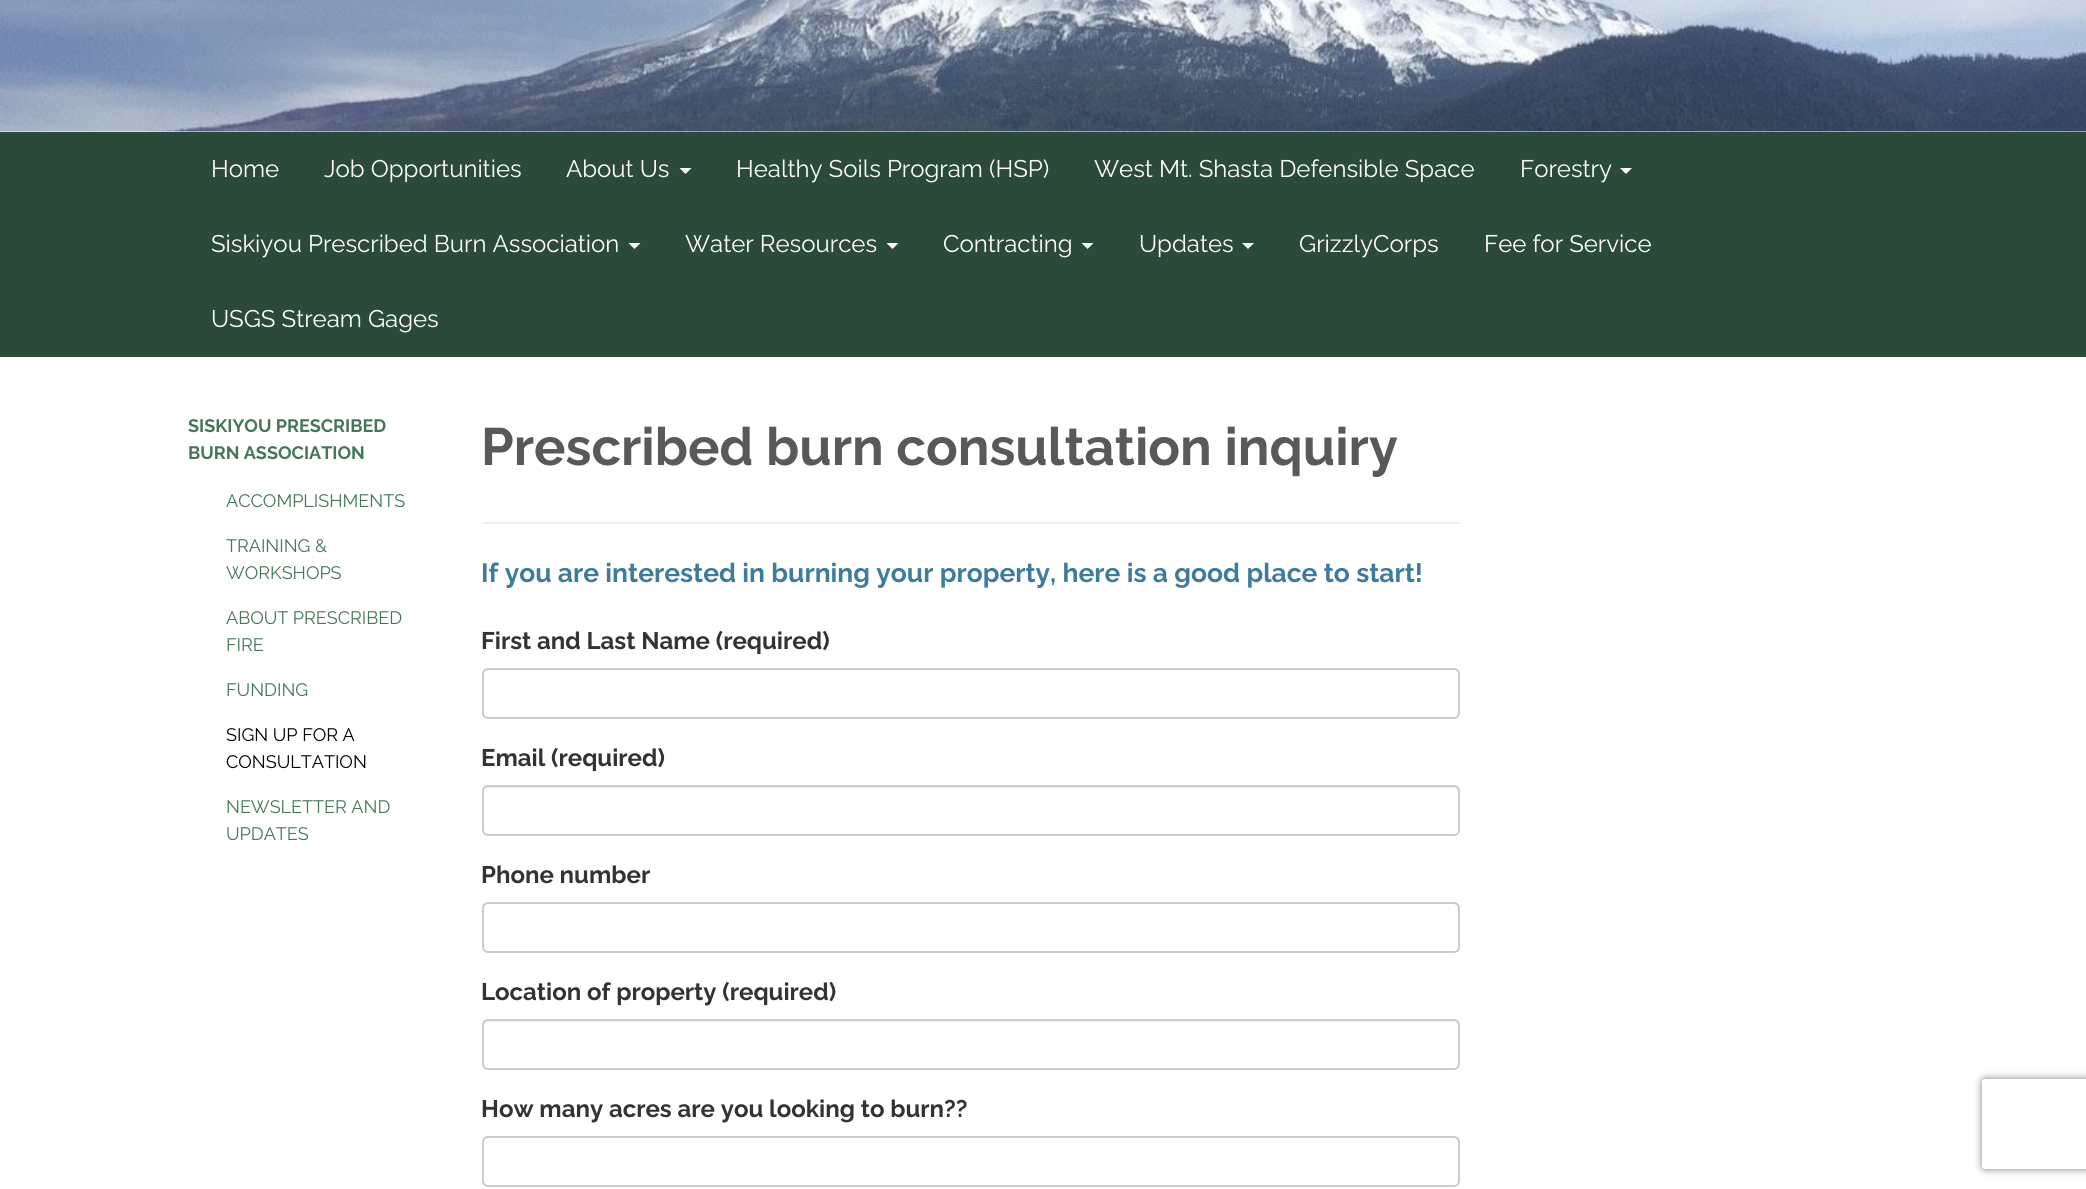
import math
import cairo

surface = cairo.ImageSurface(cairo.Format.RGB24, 2086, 1189)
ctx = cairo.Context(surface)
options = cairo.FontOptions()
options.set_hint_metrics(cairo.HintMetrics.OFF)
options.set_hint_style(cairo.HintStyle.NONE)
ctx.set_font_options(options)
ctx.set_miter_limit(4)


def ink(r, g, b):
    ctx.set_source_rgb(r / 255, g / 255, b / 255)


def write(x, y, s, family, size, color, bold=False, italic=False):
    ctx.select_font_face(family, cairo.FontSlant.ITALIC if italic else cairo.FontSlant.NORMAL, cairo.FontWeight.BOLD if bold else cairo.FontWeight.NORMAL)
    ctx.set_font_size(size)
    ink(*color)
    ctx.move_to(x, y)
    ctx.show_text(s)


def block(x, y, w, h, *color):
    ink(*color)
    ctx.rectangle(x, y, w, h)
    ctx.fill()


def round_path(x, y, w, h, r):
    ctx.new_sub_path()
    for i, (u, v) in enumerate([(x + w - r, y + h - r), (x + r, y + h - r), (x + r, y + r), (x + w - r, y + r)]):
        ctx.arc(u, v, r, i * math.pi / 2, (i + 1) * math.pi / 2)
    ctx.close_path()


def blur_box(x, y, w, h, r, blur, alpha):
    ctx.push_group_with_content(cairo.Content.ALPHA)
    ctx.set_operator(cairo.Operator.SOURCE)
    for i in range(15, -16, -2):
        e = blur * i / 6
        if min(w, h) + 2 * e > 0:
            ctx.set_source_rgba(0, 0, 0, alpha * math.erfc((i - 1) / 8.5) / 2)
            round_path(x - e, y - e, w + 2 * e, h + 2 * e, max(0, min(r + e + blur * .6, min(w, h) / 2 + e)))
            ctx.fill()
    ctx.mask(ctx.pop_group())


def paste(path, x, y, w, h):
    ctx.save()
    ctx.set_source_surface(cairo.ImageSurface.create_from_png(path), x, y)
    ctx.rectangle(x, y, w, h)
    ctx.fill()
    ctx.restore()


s1 = dict(family="Raleway", size=24, color=(255, 255, 255))
s2 = dict(family="Raleway", size=18, color=(70, 117, 90), bold=True)
s3 = dict(family="Raleway", size=18, color=(70, 117, 90))
s4 = dict(family="Raleway", size=18, color=(0, 0, 0))
s5 = dict(family="Raleway", size=52.5, color=(88, 89, 91), bold=True)
s6 = dict(family="Raleway", size=26.4, color=(63, 124, 156), bold=True)
s7 = dict(family="Raleway", size=24, color=(51, 51, 51), bold=True)

ink(255, 255, 255)
ctx.paint()
paste("pic1.png", 0, 0, 2086, 132)
block(0, 132, 2086, 225, 44, 74, 57)
write(211, 177, "Home", **s1)
write(324, 177, "Job Opportunities", **s1)
write(566, 177, "About Us", **s1)
ctx.new_path()
ctx.move_to(679.5, 168)
ctx.line_to(691.5, 168)
ctx.line_to(685.5, 174)
ctx.close_path()
ctx.fill()
write(736, 177, "Healthy Soils Program (HSP)", **s1)
write(1094, 177, "West Mt. Shasta Defensible Space", **s1)
write(1520, 177, "Forestry", **s1)
ctx.new_path()
ctx.move_to(1620, 168)
ctx.line_to(1632, 168)
ctx.line_to(1626, 174)
ctx.close_path()
ctx.fill()
write(211, 252, "Siskiyou Prescribed Burn Association", **s1)
ctx.new_path()
ctx.move_to(628.5, 243)
ctx.line_to(640.5, 243)
ctx.line_to(634.5, 249)
ctx.close_path()
ctx.fill()
write(685, 252, "Water Resources", **s1)
ctx.new_path()
ctx.move_to(886.5, 243)
ctx.line_to(898.5, 243)
ctx.line_to(892.5, 249)
ctx.close_path()
ctx.fill()
write(943, 252, "Contracting", **s1)
ctx.new_path()
ctx.move_to(1081.5, 243)
ctx.line_to(1093.5, 243)
ctx.line_to(1087.5, 249)
ctx.close_path()
ctx.fill()
write(1139, 252, "Updates", **s1)
ctx.new_path()
ctx.move_to(1242, 243)
ctx.line_to(1254, 243)
ctx.line_to(1248, 249)
ctx.close_path()
ctx.fill()
write(1299, 252, "GrizzlyCorps", **s1)
write(1484, 252, "Fee for Service", **s1)
write(211, 327, "USGS Stream Gages", **s1)
write(188, 432, "SISKIYOU PRESCRIBED", **s2)
write(188, 459, "BURN ASSOCIATION", **s2)
write(226, 507, "ACCOMPLISHMENTS", **s3)
write(226, 552, "TRAINING &", **s3)
write(226, 579, "WORKSHOPS", **s3)
write(226, 624, "ABOUT PRESCRIBED", **s3)
write(226, 651, "FIRE", **s3)
write(226, 696, "FUNDING", **s3)
write(226, 741, "SIGN UP FOR A", **s4)
write(226, 768, "CONSULTATION", **s4)
write(226, 813, "NEWSLETTER AND", **s3)
write(226, 840, "UPDATES", **s3)
write(481, 465, "Prescribed burn consultation inquiry", **s5)
block(482, 522, 978, 2, 238, 238, 238)
write(481, 582, "If you are interested in burning your property, here is a good place to start!", **s6)
write(481, 649, "First and Last Name (required)", **s7)
ink(236, 236, 236)
ctx.new_path()
ctx.move_to(488, 670)
ctx.line_to(1454, 670)
ctx.curve_to(1456, 670, 1458, 673, 1458, 675)
ctx.curve_to(1458, 672, 1456, 669, 1453, 669)
ctx.line_to(488, 669)
ctx.curve_to(485, 669, 483, 672, 483, 675)
ctx.curve_to(483, 673, 485, 670, 488, 670)
ctx.close_path()
ctx.fill()
round_path(483, 669, 976, 49, 5)
ink(204, 204, 204)
ctx.stroke()
write(481, 766, "Email (required)", **s7)
ink(236, 236, 236)
ctx.new_path()
ctx.move_to(488, 788)
ctx.line_to(1454, 788)
ctx.curve_to(1456, 788, 1458, 790, 1458, 792)
ctx.curve_to(1458, 789, 1456, 786, 1453, 786)
ctx.line_to(488, 786)
ctx.curve_to(485, 786, 483, 789, 483, 792)
ctx.curve_to(483, 790, 485, 788, 488, 788)
ctx.close_path()
ctx.fill()
round_path(483, 786, 976, 49, 5)
ink(204, 204, 204)
ctx.stroke()
write(481, 883, "Phone number", **s7)
ink(236, 236, 236)
ctx.new_path()
ctx.move_to(488, 904)
ctx.line_to(1454, 904)
ctx.curve_to(1456, 904, 1458, 907, 1458, 909)
ctx.curve_to(1458, 906, 1456, 903, 1453, 903)
ctx.line_to(488, 903)
ctx.curve_to(485, 903, 483, 906, 483, 909)
ctx.curve_to(483, 907, 485, 904, 488, 904)
ctx.close_path()
ctx.fill()
round_path(483, 903, 976, 49, 5)
ink(204, 204, 204)
ctx.stroke()
write(481, 1000, "Location of property (required)", **s7)
ink(236, 236, 236)
ctx.new_path()
ctx.move_to(488, 1022)
ctx.line_to(1454, 1022)
ctx.curve_to(1456, 1022, 1458, 1024, 1458, 1026)
ctx.curve_to(1458, 1023, 1456, 1020, 1453, 1020)
ctx.line_to(488, 1020)
ctx.curve_to(485, 1020, 483, 1023, 483, 1026)
ctx.curve_to(483, 1024, 485, 1022, 488, 1022)
ctx.close_path()
ctx.fill()
round_path(483, 1020, 976, 49, 5)
ink(204, 204, 204)
ctx.stroke()
write(481, 1117, "How many acres are you looking to burn??", **s7)
ink(236, 236, 236)
ctx.new_path()
ctx.move_to(488, 1138)
ctx.line_to(1454, 1138)
ctx.curve_to(1456, 1138, 1458, 1141, 1458, 1143)
ctx.curve_to(1458, 1140, 1456, 1137, 1453, 1137)
ctx.line_to(488, 1137)
ctx.curve_to(485, 1137, 483, 1140, 483, 1143)
ctx.curve_to(483, 1141, 485, 1138, 488, 1138)
ctx.close_path()
ctx.fill()
round_path(483, 1137, 976, 49, 5)
ink(204, 204, 204)
ctx.stroke()
ctx.save()
ctx.set_fill_rule(cairo.FillRule.EVEN_ODD)
ctx.new_path()
ctx.move_to(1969, 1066)
ctx.line_to(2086, 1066)
ctx.line_to(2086, 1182)
ctx.line_to(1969, 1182)
ctx.close_path()
ctx.move_to(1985, 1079)
ctx.line_to(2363, 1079)
ctx.curve_to(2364.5, 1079, 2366, 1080.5, 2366, 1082)
ctx.line_to(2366, 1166)
ctx.curve_to(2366, 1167.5, 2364.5, 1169, 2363, 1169)
ctx.line_to(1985, 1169)
ctx.curve_to(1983.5, 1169, 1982, 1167.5, 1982, 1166)
ctx.line_to(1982, 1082)
ctx.curve_to(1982, 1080.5, 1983.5, 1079, 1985, 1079)
ctx.close_path()
ctx.clip()
ink(128, 128, 128)
blur_box(1982, 1079, 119, 90, 3, 4, 1)
ctx.restore()
surface.write_to_png("screenshot.png")
